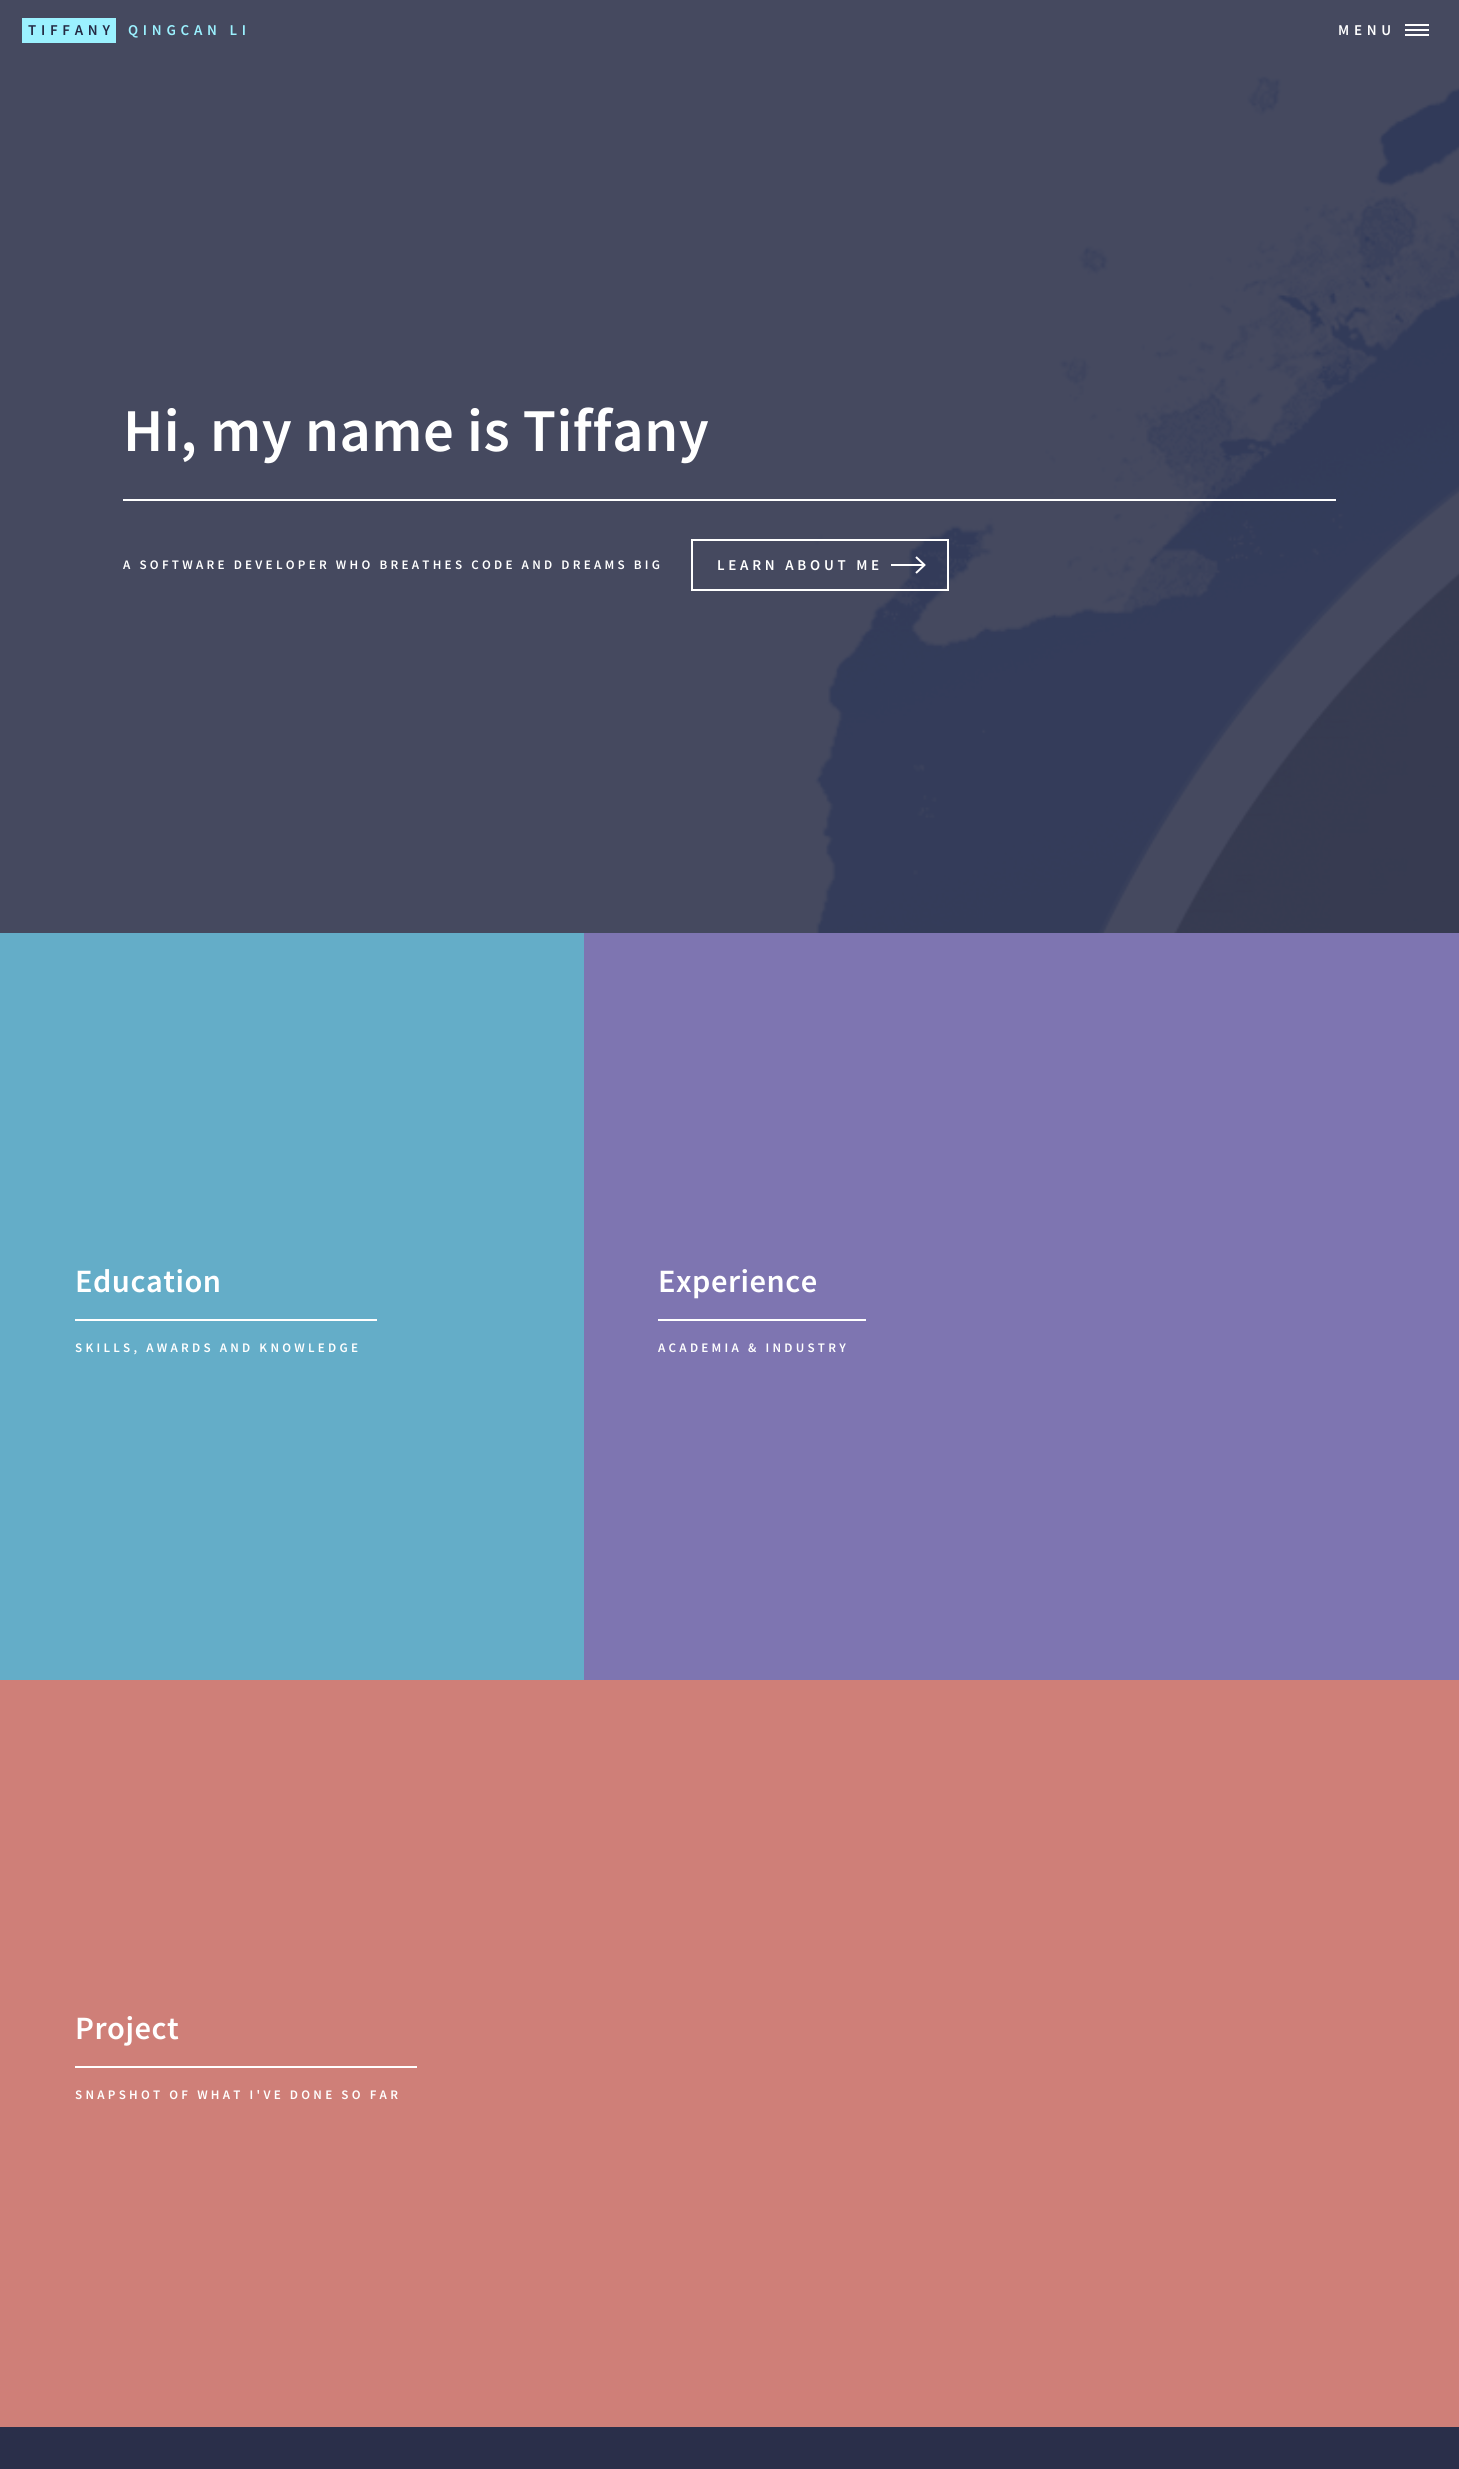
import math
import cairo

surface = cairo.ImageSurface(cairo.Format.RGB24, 1459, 2469)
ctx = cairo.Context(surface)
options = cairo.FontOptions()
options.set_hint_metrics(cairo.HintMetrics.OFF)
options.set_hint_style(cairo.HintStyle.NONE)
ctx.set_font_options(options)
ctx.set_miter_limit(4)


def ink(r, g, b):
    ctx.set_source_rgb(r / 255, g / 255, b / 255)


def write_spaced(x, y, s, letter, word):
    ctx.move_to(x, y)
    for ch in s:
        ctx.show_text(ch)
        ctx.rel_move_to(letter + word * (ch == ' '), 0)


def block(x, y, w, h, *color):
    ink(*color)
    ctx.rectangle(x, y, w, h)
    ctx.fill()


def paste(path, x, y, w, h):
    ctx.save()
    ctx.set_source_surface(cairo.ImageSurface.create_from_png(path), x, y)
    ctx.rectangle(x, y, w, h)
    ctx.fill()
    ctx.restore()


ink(42, 47, 74)
ctx.paint()
paste("pic1.png", 0, 0, 1459, 933)
block(22, 18, 94, 25, 155, 241, 255)
ctx.select_font_face("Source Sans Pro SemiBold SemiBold")
ctx.set_font_size(15)
ink(36, 41, 67)
write_spaced(28, 35, "TIFFANY", 4.75, 0)
ink(155, 241, 255)
write_spaced(128, 35, "QINGCAN LI", 4.75, 0)
ink(255, 255, 255)
write_spaced(1338, 35, "MENU", 4.75, 0)
block(1405, 24, 24, 2, 255, 255, 255)
block(1405, 34, 24, 2, 255, 255, 255)
block(1405, 29, 24, 2, 255, 255, 255)
ctx.set_font_size(60.75)
write_spaced(123, 451, "Hi, my name is Tiffany", 0.5, 0)
block(123, 499, 1213, 2, 255, 255, 255)
ctx.set_font_size(13.05)
write_spaced(123, 569, "A SOFTWARE DEVELOPER WHO BREATHES CODE AND DREAMS BIG", 3.27, 0)
ctx.rectangle(692, 540, 256, 50)
ctx.stroke()
ctx.set_font_size(15)
write_spaced(717, 570, "LEARN ABOUT ME", 3.75, 0)
block(891, 564, 34, 2, 255, 255, 255)
ctx.new_path()
ctx.move_to(916, 557)
ctx.line_to(925, 565.5)
ctx.move_to(916, 573)
ctx.line_to(925, 564.5)
ctx.stroke()
block(0, 933, 584, 747, 100, 173, 200)
ctx.set_font_size(32.5)
ink(255, 255, 255)
write_spaced(75, 1292, "Education", 0.5, 0)
block(75, 1319, 302, 2, 255, 255, 255)
ctx.set_font_size(13.05)
write_spaced(75, 1352, "SKILLS, AWARDS AND KNOWLEDGE", 3.27, 0)
block(584, 933, 875, 747, 126, 117, 177)
ctx.set_font_size(32.5)
ink(255, 255, 255)
write_spaced(658, 1292, "Experience", 0.5, 0)
block(658, 1319, 208, 2, 255, 255, 255)
ctx.set_font_size(13.05)
write_spaced(658, 1352, "ACADEMIA & INDUSTRY", 3.27, 0)
block(0, 1680, 1459, 747, 207, 127, 120)
ctx.set_font_size(32.5)
ink(255, 255, 255)
write_spaced(75, 2039, "Project", 0.5, 0)
block(75, 2066, 342, 2, 255, 255, 255)
ctx.set_font_size(13.05)
write_spaced(75, 2099, "SNAPSHOT OF WHAT I'VE DONE SO FAR", 3.27, 0)
surface.write_to_png("screenshot.png")
